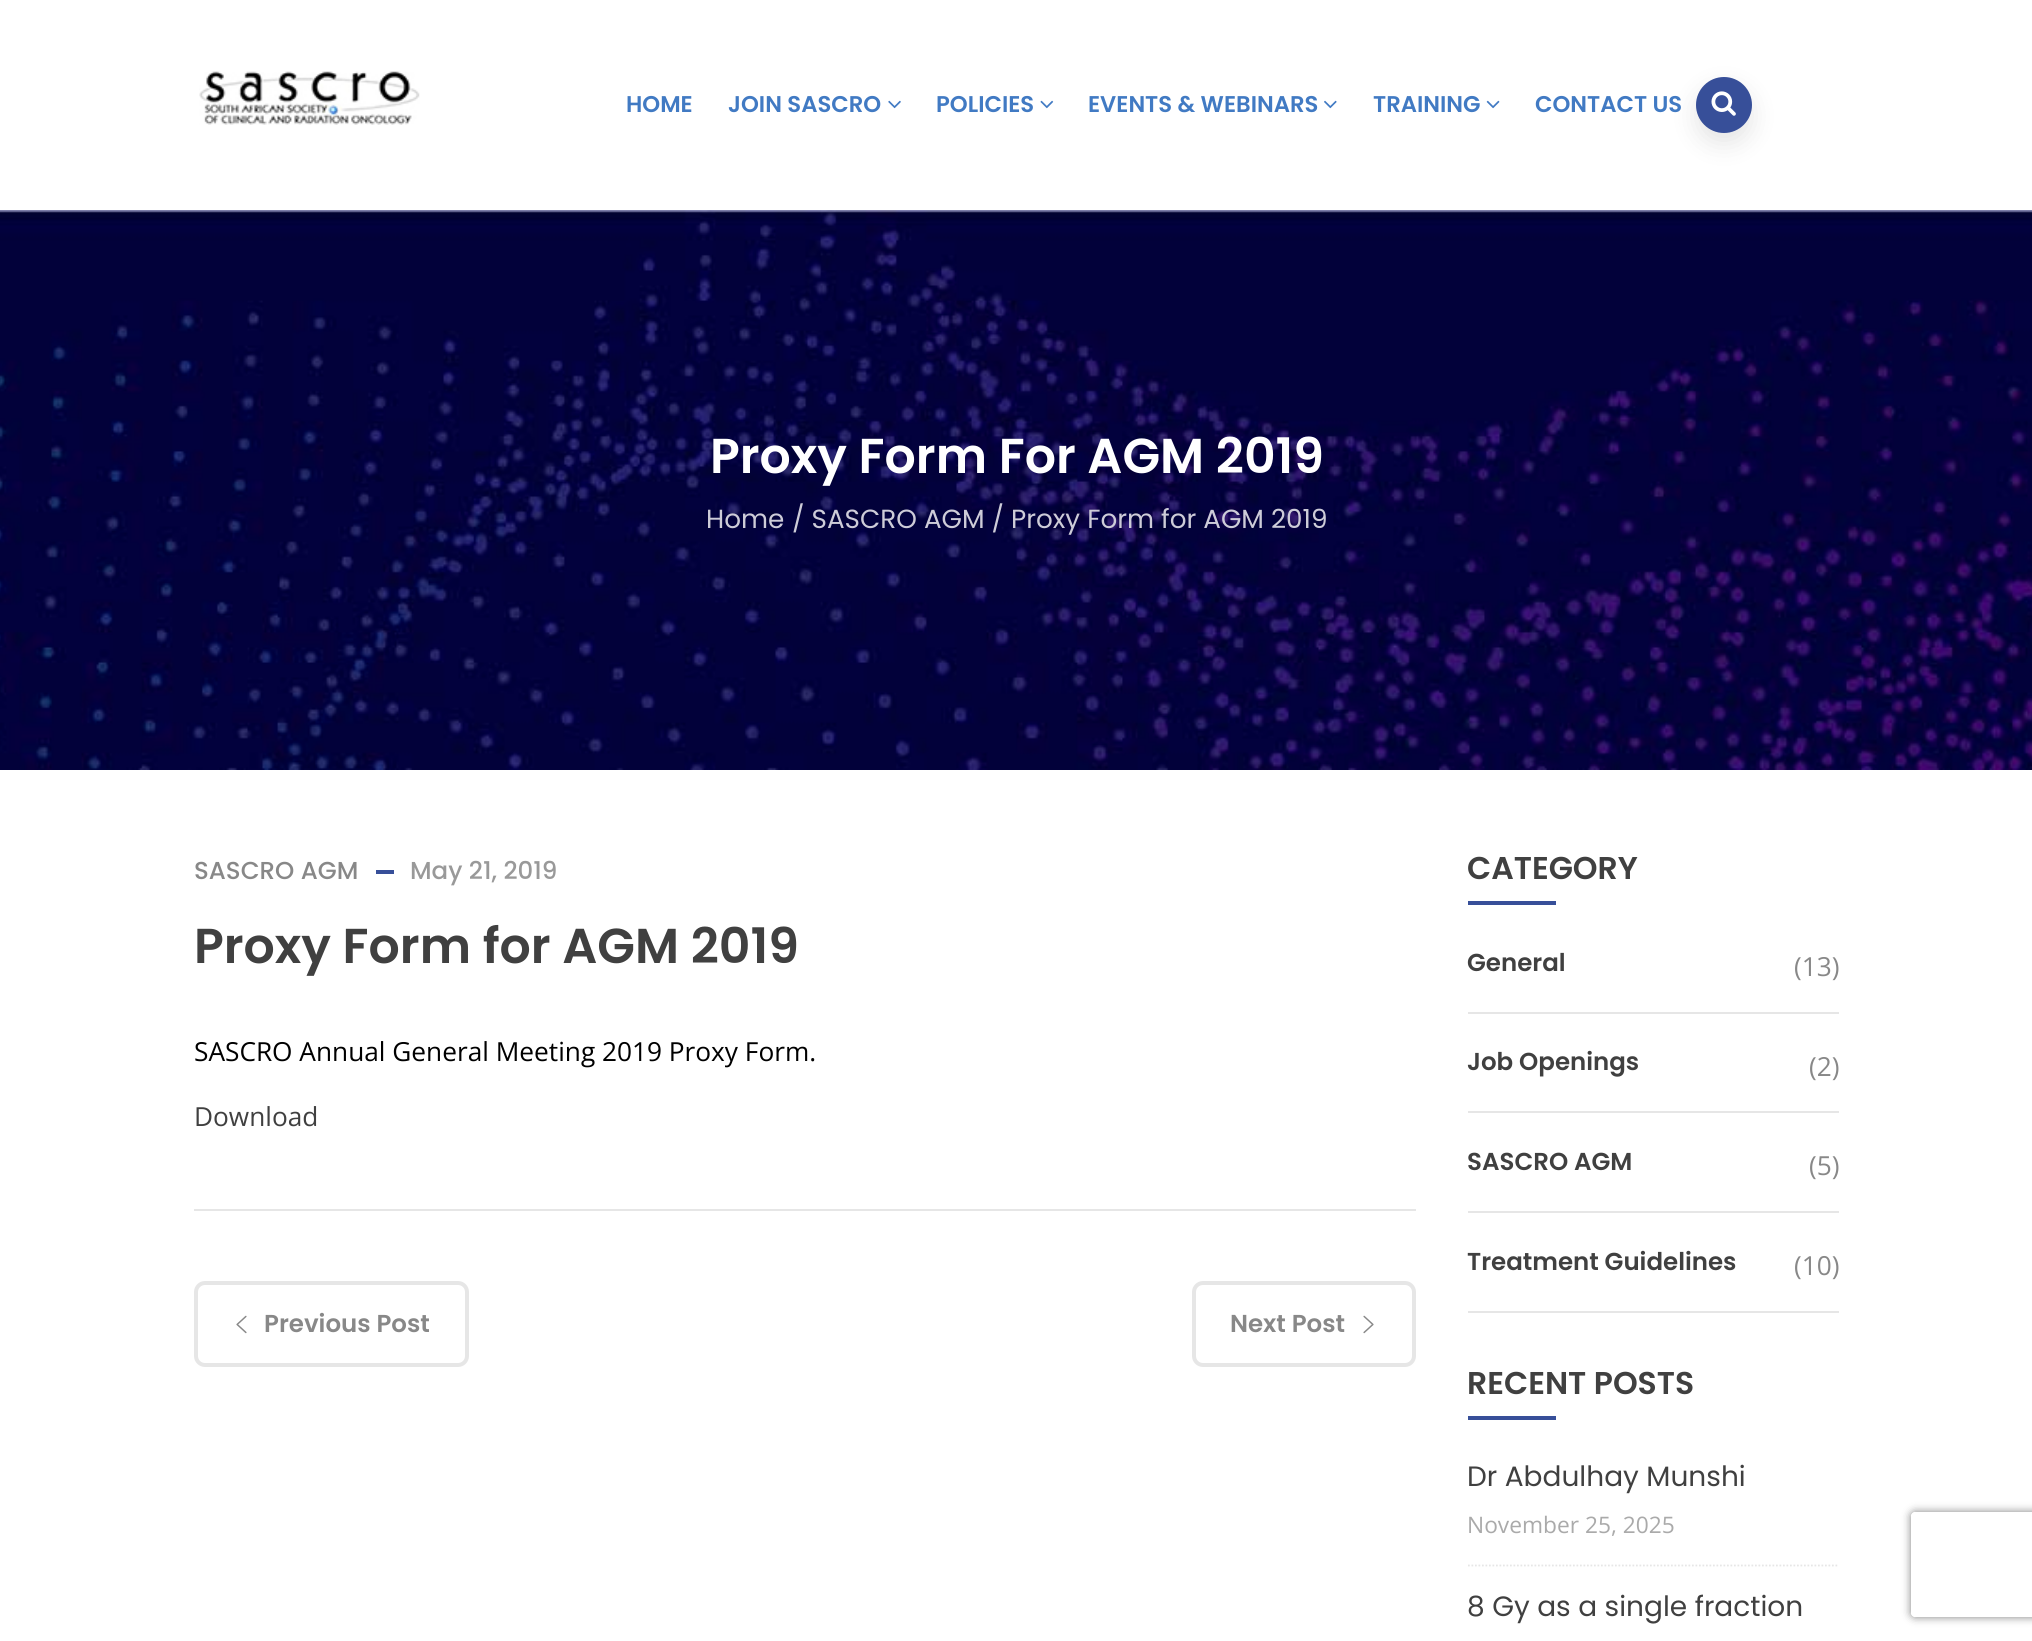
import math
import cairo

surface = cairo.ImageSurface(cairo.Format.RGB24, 2032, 1641)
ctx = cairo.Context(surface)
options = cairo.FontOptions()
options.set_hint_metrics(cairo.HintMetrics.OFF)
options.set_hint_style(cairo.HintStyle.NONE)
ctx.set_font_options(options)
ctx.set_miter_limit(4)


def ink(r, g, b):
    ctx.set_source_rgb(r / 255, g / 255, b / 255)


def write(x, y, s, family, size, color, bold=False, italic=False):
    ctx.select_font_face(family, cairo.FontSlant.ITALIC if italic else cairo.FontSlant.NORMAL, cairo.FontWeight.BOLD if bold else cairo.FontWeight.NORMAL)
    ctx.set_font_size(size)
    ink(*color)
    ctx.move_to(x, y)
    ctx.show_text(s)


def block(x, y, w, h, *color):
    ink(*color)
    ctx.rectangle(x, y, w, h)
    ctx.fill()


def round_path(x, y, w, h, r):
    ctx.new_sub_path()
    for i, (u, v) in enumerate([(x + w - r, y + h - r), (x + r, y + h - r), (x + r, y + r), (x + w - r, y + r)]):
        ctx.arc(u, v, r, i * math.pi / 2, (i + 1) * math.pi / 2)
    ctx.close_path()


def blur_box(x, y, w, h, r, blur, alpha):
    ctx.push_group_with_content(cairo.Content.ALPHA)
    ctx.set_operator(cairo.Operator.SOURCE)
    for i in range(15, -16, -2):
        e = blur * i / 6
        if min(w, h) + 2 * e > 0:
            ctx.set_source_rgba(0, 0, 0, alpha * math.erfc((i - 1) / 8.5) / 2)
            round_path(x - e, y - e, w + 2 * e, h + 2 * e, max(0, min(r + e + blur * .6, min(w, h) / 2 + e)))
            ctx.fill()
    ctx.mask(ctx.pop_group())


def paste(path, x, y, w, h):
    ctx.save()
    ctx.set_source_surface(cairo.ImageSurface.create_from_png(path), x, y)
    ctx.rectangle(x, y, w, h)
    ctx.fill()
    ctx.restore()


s1 = dict(family="Poppins SemiBold", size=22.75, color=(65, 122, 195))
s2 = dict(family="Poppins SemiBold", size=49, color=(255, 255, 255))
s3 = dict(family="Poppins", size=26.25, color=(205, 204, 216))
s4 = dict(family="Poppins Medium", size=24.5, color=(136, 136, 136))
s5 = dict(family="Poppins Medium", size=24.5, color=(153, 153, 153))
s6 = dict(family="Poppins SemiBold", size=49, color=(64, 64, 64))
s7 = dict(family="Open Sans", size=26.25, color=(0, 0, 0))
s8 = dict(family="Open Sans", size=26.25, color=(64, 64, 64))
s9 = dict(family="Poppins SemiBold", size=24.5, color=(136, 136, 136))
s10 = dict(family="Poppins SemiBold", size=31.5, color=(64, 64, 64))
s11 = dict(family="Poppins SemiBold", size=24.5, color=(64, 64, 64))
s12 = dict(family="Open Sans", size=26.25, color=(136, 136, 136))
s13 = dict(family="Poppins", size=28, color=(64, 64, 64))
s14 = dict(family="Open Sans", size=22.75, color=(170, 170, 170))

ink(255, 255, 255)
ctx.paint()
paste("pic1.png", 199, 71, 221, 54)
write(626, 112, "HOME", **s1)
write(728, 112, "JOIN SASCRO", **s1)
paste("pic2.png", 888, 100, 13, 9)
write(936, 112, "POLICIES", **s1)
paste("pic3.png", 1040, 100, 14, 9)
write(1088, 112, "EVENTS & WEBINARS", **s1)
paste("pic4.png", 1324, 100, 13, 9)
write(1373, 112, "TRAINING", **s1)
paste("pic5.png", 1486, 100, 14, 9)
write(1535, 112, "CONTACT US", **s1)
ink(0, 0, 0)
blur_box(1696, 88, 56, 56, 28, 12, 0.1)
ink(55, 79, 153)
ctx.arc(1724, 105, 28, 0, 2 * math.pi)
ctx.fill()
paste("pic6.png", 1711, 91, 25, 25)
paste("pic7.png", 0, 210, 2032, 560)
write(710, 473, "Proxy Form For AGM 2019", **s2)
write(706, 528, "Home", **s3)
write(792, 528, "/ SASCRO AGM /", **s3)
write(1011, 528, "Proxy Form for AGM 2019", **s3)
write(194, 879, "SASCRO AGM", **s4)
block(376, 870, 18, 4, 55, 79, 153)
write(410, 879, "May 21, 2019", **s5)
write(194, 963, "Proxy Form for AGM 2019", **s6)
write(194, 1061, "SASCRO Annual General Meeting 2019 Proxy Form.", **s7)
write(194, 1126, "Download", **s8)
block(194, 1209, 1222, 2, 230, 230, 230)
round_path(196, 1283, 271, 82, 9)
ctx.set_line_width(4)
ctx.stroke()
paste("pic8.png", 236, 1315, 11, 19)
write(264, 1332, "Previous Post", **s9)
round_path(1194, 1283, 220, 82, 9)
ink(230, 230, 230)
ctx.stroke()
write(1230, 1332, "Next Post", **s9)
paste("pic9.png", 1363, 1315, 11, 19)
write(1467, 879, "CATEGORY", **s10)
block(1468, 901, 88, 4, 55, 79, 153)
block(1468, 1012, 371, 2, 230, 230, 230)
write(1467, 971, "General", **s11)
write(1794, 976, "(13)", **s12)
block(1468, 1111, 371, 2, 230, 230, 230)
write(1467, 1070, "Job Openings", **s11)
write(1809, 1076, "(2)", **s12)
block(1468, 1211, 371, 2, 230, 230, 230)
write(1467, 1170, "SASCRO AGM", **s11)
write(1809, 1175, "(5)", **s12)
block(1468, 1311, 371, 2, 230, 230, 230)
write(1467, 1270, "Treatment Guidelines", **s11)
write(1794, 1275, "(10)", **s12)
write(1467, 1394, "RECENT POSTS", **s10)
block(1468, 1416, 88, 4, 55, 79, 153)
ctx.new_path()
ctx.move_to(1468, 1565.5)
ctx.line_to(1839, 1565.5)
ink(230, 230, 230)
ctx.set_line_width(1.8)
ctx.set_dash([1.75, 1.75])
ctx.stroke()
write(1467, 1486, "Dr Abdulhay Munshi", **s13)
write(1467, 1533, "November 25, 2025", **s14)
write(1467, 1616, "8 Gy as a single fraction", **s13)
ctx.save()
ctx.set_fill_rule(cairo.FillRule.EVEN_ODD)
ctx.new_path()
ctx.move_to(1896, 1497)
ctx.line_to(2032, 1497)
ctx.line_to(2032, 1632)
ctx.line_to(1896, 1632)
ctx.close_path()
ctx.move_to(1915, 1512)
ctx.line_to(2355, 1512)
ctx.curve_to(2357, 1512, 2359, 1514, 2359, 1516)
ctx.line_to(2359, 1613)
ctx.curve_to(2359, 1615, 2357, 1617, 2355, 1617)
ctx.line_to(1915, 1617)
ctx.curve_to(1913, 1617, 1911, 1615, 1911, 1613)
ctx.line_to(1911, 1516)
ctx.curve_to(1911, 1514, 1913, 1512, 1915, 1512)
ctx.close_path()
ctx.clip()
ink(128, 128, 128)
blur_box(1911, 1512, 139, 105, 4, 4.5, 1)
ctx.restore()
surface.write_to_png("screenshot.png")
